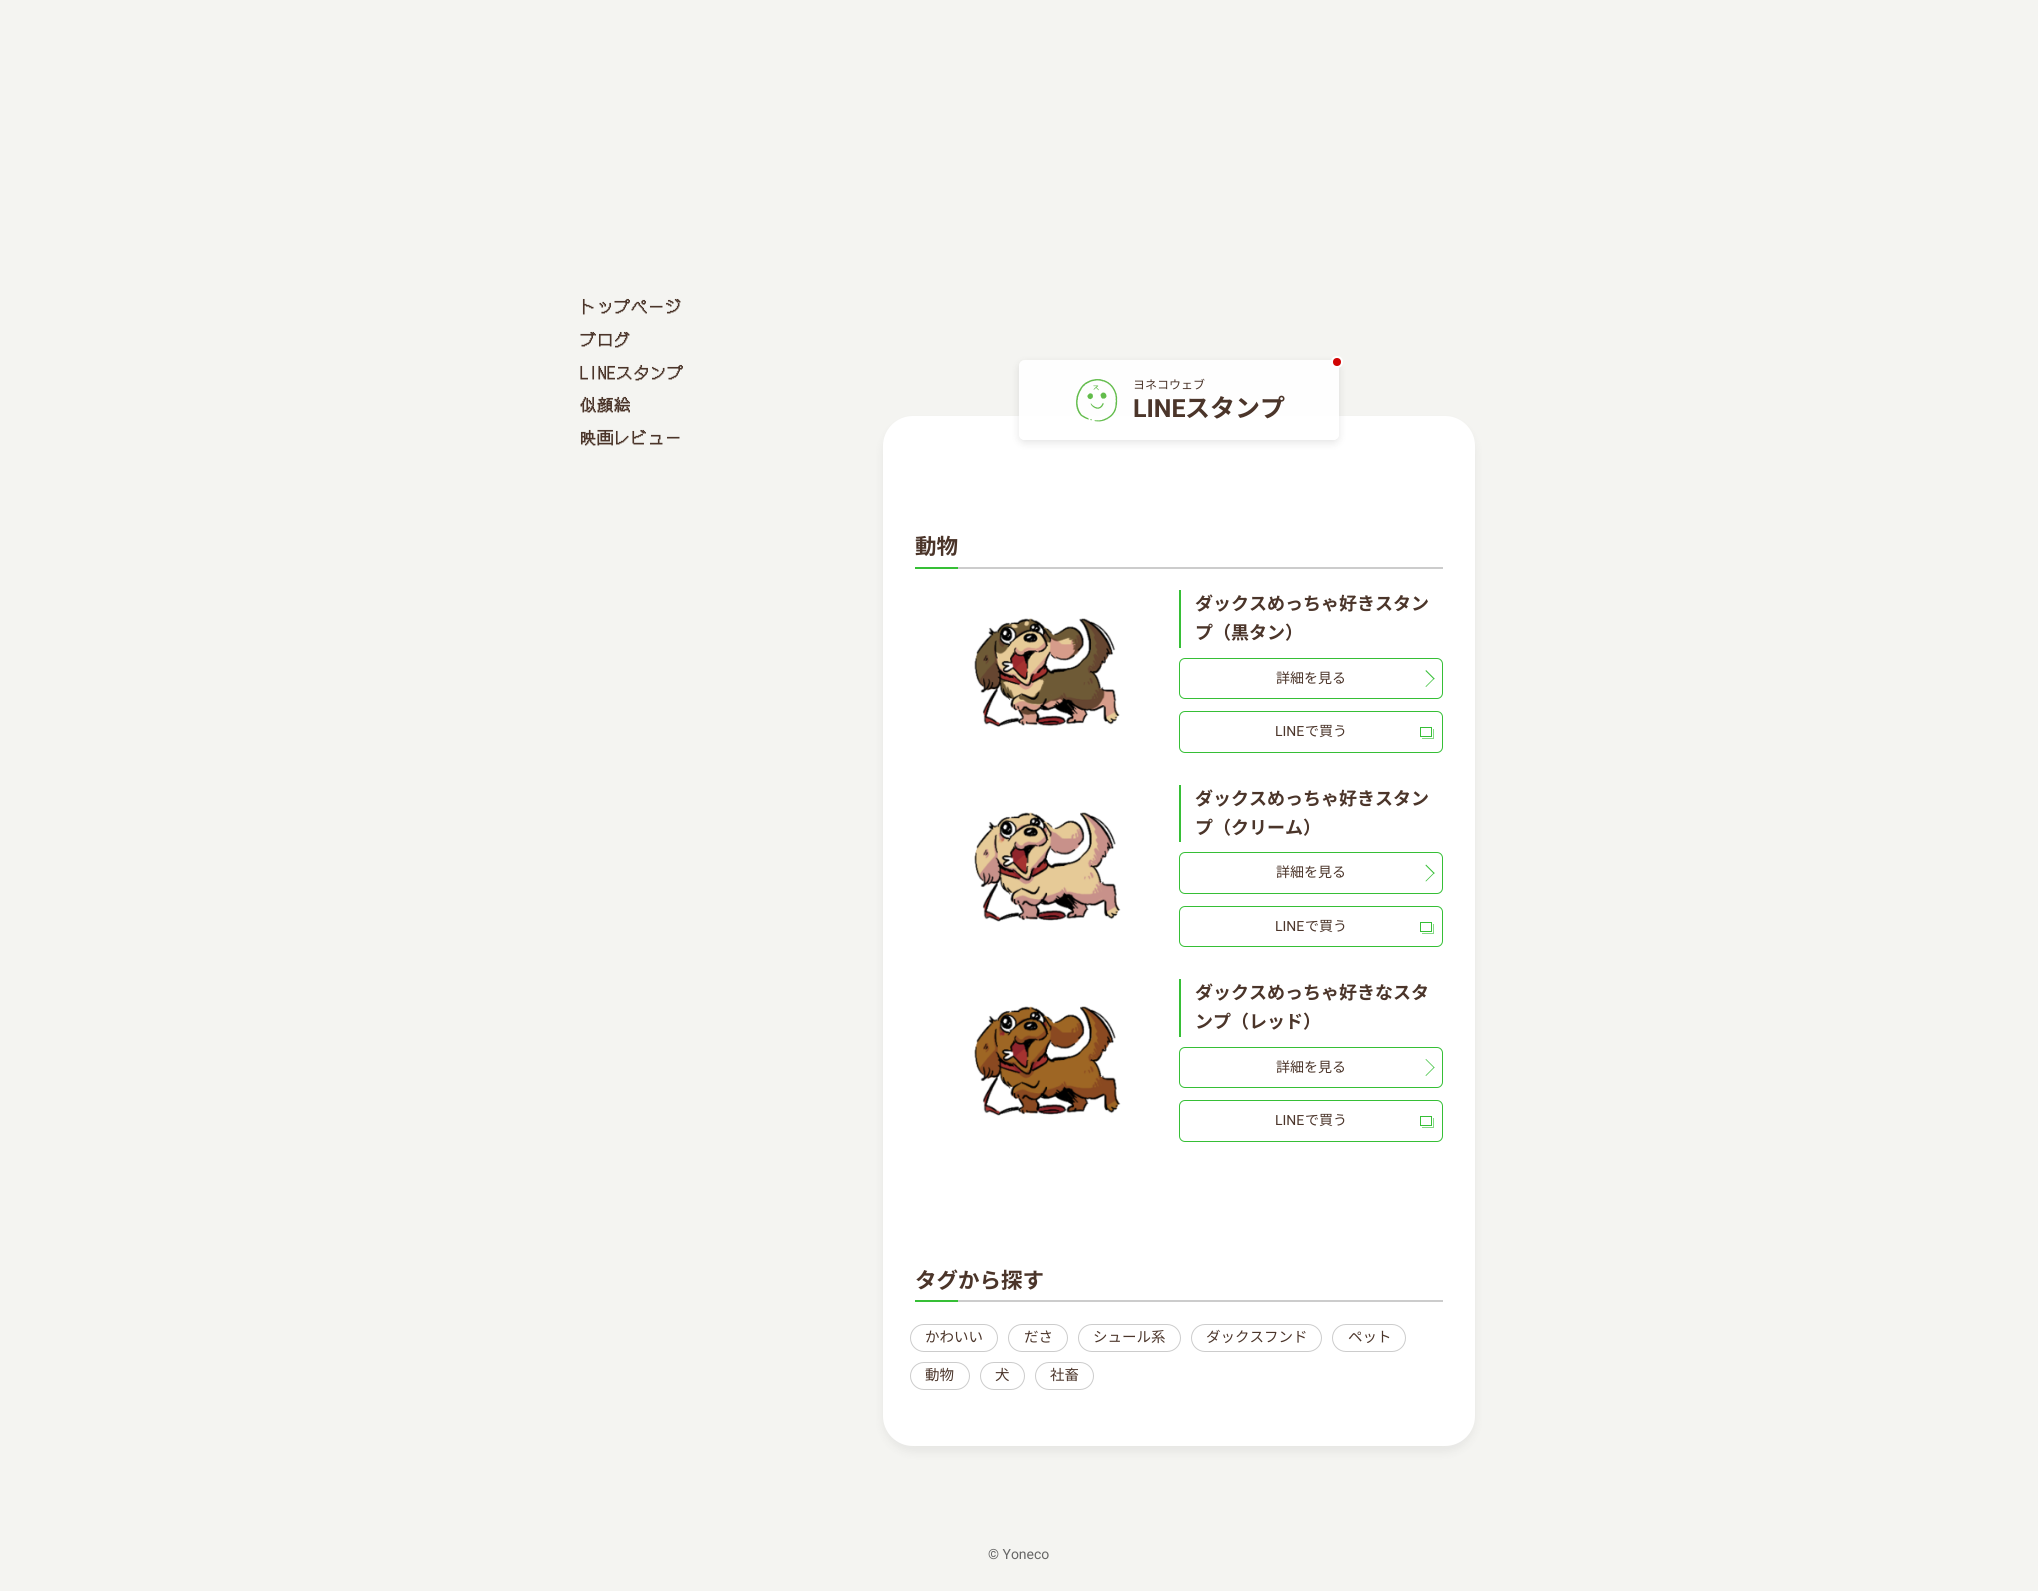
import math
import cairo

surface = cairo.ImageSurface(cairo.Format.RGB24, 2038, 1591)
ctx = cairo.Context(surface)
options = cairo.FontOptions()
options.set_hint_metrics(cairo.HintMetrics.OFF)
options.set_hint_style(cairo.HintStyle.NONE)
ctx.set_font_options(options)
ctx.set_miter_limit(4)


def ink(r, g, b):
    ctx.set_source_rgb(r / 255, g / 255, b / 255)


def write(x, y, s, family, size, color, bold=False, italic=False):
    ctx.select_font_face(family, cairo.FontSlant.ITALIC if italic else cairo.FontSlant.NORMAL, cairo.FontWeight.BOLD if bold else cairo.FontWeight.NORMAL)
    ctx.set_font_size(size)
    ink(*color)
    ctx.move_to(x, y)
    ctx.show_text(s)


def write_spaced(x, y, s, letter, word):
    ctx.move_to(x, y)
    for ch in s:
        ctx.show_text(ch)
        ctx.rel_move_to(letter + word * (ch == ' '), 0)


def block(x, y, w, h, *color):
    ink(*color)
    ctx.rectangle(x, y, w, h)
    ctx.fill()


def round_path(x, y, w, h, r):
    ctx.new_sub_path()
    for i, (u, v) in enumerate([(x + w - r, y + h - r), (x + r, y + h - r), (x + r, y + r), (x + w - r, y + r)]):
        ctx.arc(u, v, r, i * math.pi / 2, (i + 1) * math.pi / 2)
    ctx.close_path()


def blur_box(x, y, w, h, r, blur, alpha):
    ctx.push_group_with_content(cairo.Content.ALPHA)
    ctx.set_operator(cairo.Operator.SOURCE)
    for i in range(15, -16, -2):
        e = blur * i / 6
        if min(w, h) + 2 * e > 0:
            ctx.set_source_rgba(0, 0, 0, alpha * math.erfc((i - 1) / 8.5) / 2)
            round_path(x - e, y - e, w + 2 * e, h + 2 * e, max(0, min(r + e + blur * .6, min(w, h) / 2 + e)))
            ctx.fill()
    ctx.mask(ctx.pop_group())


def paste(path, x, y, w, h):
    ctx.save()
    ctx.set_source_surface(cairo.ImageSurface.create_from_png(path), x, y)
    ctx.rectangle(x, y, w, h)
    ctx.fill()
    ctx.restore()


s1 = dict(family="Noto Sans CJK JP", size=12, color=(75, 53, 42))
s2 = dict(family="Roboto", size=25, color=(75, 53, 42), bold=True)
s3 = dict(family="Noto Sans CJK JP", size=25, color=(75, 53, 42), bold=True)
s4 = dict(family="Noto Sans CJK JP", size=21.5, color=(75, 53, 42), bold=True)
s5 = dict(family="Noto Sans CJK JP", size=18, color=(75, 53, 42), bold=True)
s6 = dict(family="Noto Sans CJK JP", size=14, color=(75, 53, 42))
s7 = dict(family="Roboto", size=14, color=(75, 53, 42))
s8 = dict(family="Noto Sans CJK JP", size=14.5, color=(75, 53, 42))
s9 = dict(family="Roboto", size=14, color=(102, 102, 102))

ink(244, 244, 241)
ctx.paint()
ctx.select_font_face("DotGothic16", cairo.FontSlant.NORMAL, cairo.FontWeight.BOLD)
ctx.set_font_size(16)
ink(75, 53, 42)
write_spaced(580, 313, "トップページ", 1, 0)
write_spaced(580, 346, "ブログ", 1, 0)
write_spaced(580, 379, "LINEスタンプ", 1, 0)
write_spaced(580, 411, "似顔絵", 1, 0)
write_spaced(580, 444, "映画レビュー", 1, 0)
ink(0, 0, 0)
blur_box(883, 422, 592, 1030, 30, 5, 0.06)
ink(255, 255, 255)
round_path(883, 416, 592, 1030, 30)
ctx.fill()
ctx.save()
ctx.set_fill_rule(cairo.FillRule.EVEN_ODD)
ctx.new_path()
ctx.move_to(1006, 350)
ctx.line_to(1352, 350)
ctx.line_to(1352, 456)
ctx.line_to(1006, 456)
ctx.close_path()
ctx.move_to(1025, 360)
ctx.line_to(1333, 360)
ctx.curve_to(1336.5, 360, 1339, 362.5, 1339, 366)
ctx.line_to(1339, 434)
ctx.curve_to(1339, 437.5, 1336.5, 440, 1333, 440)
ctx.line_to(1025, 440)
ctx.curve_to(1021.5, 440, 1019, 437.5, 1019, 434)
ctx.line_to(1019, 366)
ctx.curve_to(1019, 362.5, 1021.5, 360, 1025, 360)
ctx.close_path()
ctx.clip()
ink(0, 0, 0)
blur_box(1019, 363, 320, 80, 6, 4, 0.1)
ctx.restore()
ctx.set_source_rgba(1, 1, 1, 0.9)
round_path(1019, 360, 320, 80, 6)
ctx.fill()
ink(209, 4, 4)
ctx.arc(1337, 362, 5, 0, 2 * math.pi)
ctx.fill_preserve()
ink(255, 255, 255)
ctx.stroke()
paste("pic1.png", 1076, 379, 42, 43)
write(1133, 389, "ヨネコウェブ", **s1)
write(1133, 417, "LINE", **s2)
write(1185, 417, "スタンプ", **s3)
block(958, 567, 485, 2, 204, 204, 204)
write(915, 554, "動物", **s4)
block(915, 567, 43, 2, 54, 191, 54)
paste("pic2.png", 974, 618, 146, 109)
block(1179, 590, 2, 58, 54, 191, 54)
write(1195, 610, "ダックスめっちゃ好きスタン", **s5)
write(1195, 639, "プ（黒タン）", **s5)
round_path(1179.5, 658.5, 263, 40, 5.5)
ink(54, 191, 54)
ctx.set_line_width(1)
ctx.stroke()
write(1276, 683, "詳細を見る", **s6)
ink(54, 191, 54)
ctx.new_path()
ctx.move_to(1426, 670)
ctx.line_to(1434.5, 678.5)
ctx.line_to(1434, 679.5)
ctx.line_to(1425.5, 671)
ctx.close_path()
ctx.fill()
ctx.new_path()
ctx.move_to(1434, 678)
ctx.line_to(1434.5, 678.5)
ctx.line_to(1426, 687)
ctx.line_to(1425.5, 686.5)
ctx.close_path()
ctx.fill()
round_path(1179.5, 711.5, 263, 41, 5.5)
ctx.stroke()
write(1275, 736, "LINE", **s7)
write(1305, 736, "で買う", **s6)
ctx.rectangle(1420.5, 727.5, 11, 9)
ink(54, 191, 54)
ctx.stroke()
block(1433, 729, 1, 10, 134, 217, 134)
block(1422, 738, 12, 1, 134, 217, 134)
paste("pic3.png", 974, 812, 147, 110)
block(1179, 785, 2, 57, 54, 191, 54)
write(1195, 805, "ダックスめっちゃ好きスタン", **s5)
write(1195, 834, "プ（クリーム）", **s5)
round_path(1179.5, 852.5, 263, 41, 5.5)
ink(54, 191, 54)
ctx.stroke()
write(1276, 877, "詳細を見る", **s6)
ink(54, 191, 54)
ctx.new_path()
ctx.move_to(1426, 864.5)
ctx.line_to(1434.5, 873)
ctx.line_to(1434, 874)
ctx.line_to(1425.5, 865.5)
ctx.close_path()
ctx.fill()
ctx.new_path()
ctx.move_to(1434, 872.5)
ctx.line_to(1434.5, 873)
ctx.line_to(1426, 881.5)
ctx.line_to(1425.5, 881)
ctx.close_path()
ctx.fill()
round_path(1179.5, 906.5, 263, 40, 5.5)
ctx.stroke()
write(1275, 931, "LINE", **s7)
write(1305, 931, "で買う", **s6)
ctx.rectangle(1420.5, 922.5, 11, 9)
ink(54, 191, 54)
ctx.stroke()
block(1433, 924, 1, 10, 134, 217, 134)
block(1422, 933, 12, 1, 134, 217, 134)
paste("pic4.png", 974, 1006, 147, 110)
block(1179, 979, 2, 58, 54, 191, 54)
write(1195, 999, "ダックスめっちゃ好きなスタ", **s5)
write(1195, 1028, "ンプ（レッド）", **s5)
round_path(1179.5, 1047.5, 263, 40, 5.5)
ink(54, 191, 54)
ctx.stroke()
write(1276, 1072, "詳細を見る", **s6)
ink(54, 191, 54)
ctx.new_path()
ctx.move_to(1426, 1059)
ctx.line_to(1434.5, 1067.5)
ctx.line_to(1434, 1068)
ctx.line_to(1425.5, 1059.5)
ctx.close_path()
ctx.fill()
ctx.new_path()
ctx.move_to(1434, 1067)
ctx.line_to(1434.5, 1067.5)
ctx.line_to(1426, 1076)
ctx.line_to(1425.5, 1075.5)
ctx.close_path()
ctx.fill()
round_path(1179.5, 1100.5, 263, 41, 5.5)
ctx.stroke()
write(1275, 1125, "LINE", **s7)
write(1305, 1125, "で買う", **s6)
ctx.rectangle(1420.5, 1116.5, 11, 9)
ink(54, 191, 54)
ctx.stroke()
block(1433, 1118, 1, 10, 134, 217, 134)
block(1422, 1127, 12, 1, 134, 217, 134)
block(958, 1300, 485, 2, 204, 204, 204)
write(915, 1288, "タグから探す", **s4)
block(915, 1300, 43, 2, 54, 191, 54)
round_path(910.5, 1324.5, 87, 27, 13.5)
ink(204, 204, 204)
ctx.stroke()
write(925, 1342, "かわいい", **s8)
round_path(1008.5, 1324.5, 59, 27, 13.5)
ink(204, 204, 204)
ctx.stroke()
write(1024, 1342, "ださ", **s8)
round_path(1078.5, 1324.5, 102, 27, 13.5)
ink(204, 204, 204)
ctx.stroke()
write(1093, 1342, "シュール系", **s8)
round_path(1191.5, 1324.5, 130, 27, 13.5)
ink(204, 204, 204)
ctx.stroke()
write(1206, 1342, "ダックスフンド", **s8)
round_path(1332.5, 1324.5, 73, 27, 13.5)
ink(204, 204, 204)
ctx.stroke()
write(1348, 1342, "ペット", **s8)
round_path(910.5, 1362.5, 59, 27, 13.5)
ink(204, 204, 204)
ctx.stroke()
write(925, 1380, "動物", **s8)
round_path(980.5, 1362.5, 44, 27, 13.5)
ink(204, 204, 204)
ctx.stroke()
write(995, 1380, "犬", **s8)
round_path(1035.5, 1362.5, 58, 27, 13.5)
ink(204, 204, 204)
ctx.stroke()
write(1050, 1380, "社畜", **s8)
write(988, 1559, "© Yoneco", **s9)
surface.write_to_png("screenshot.png")
